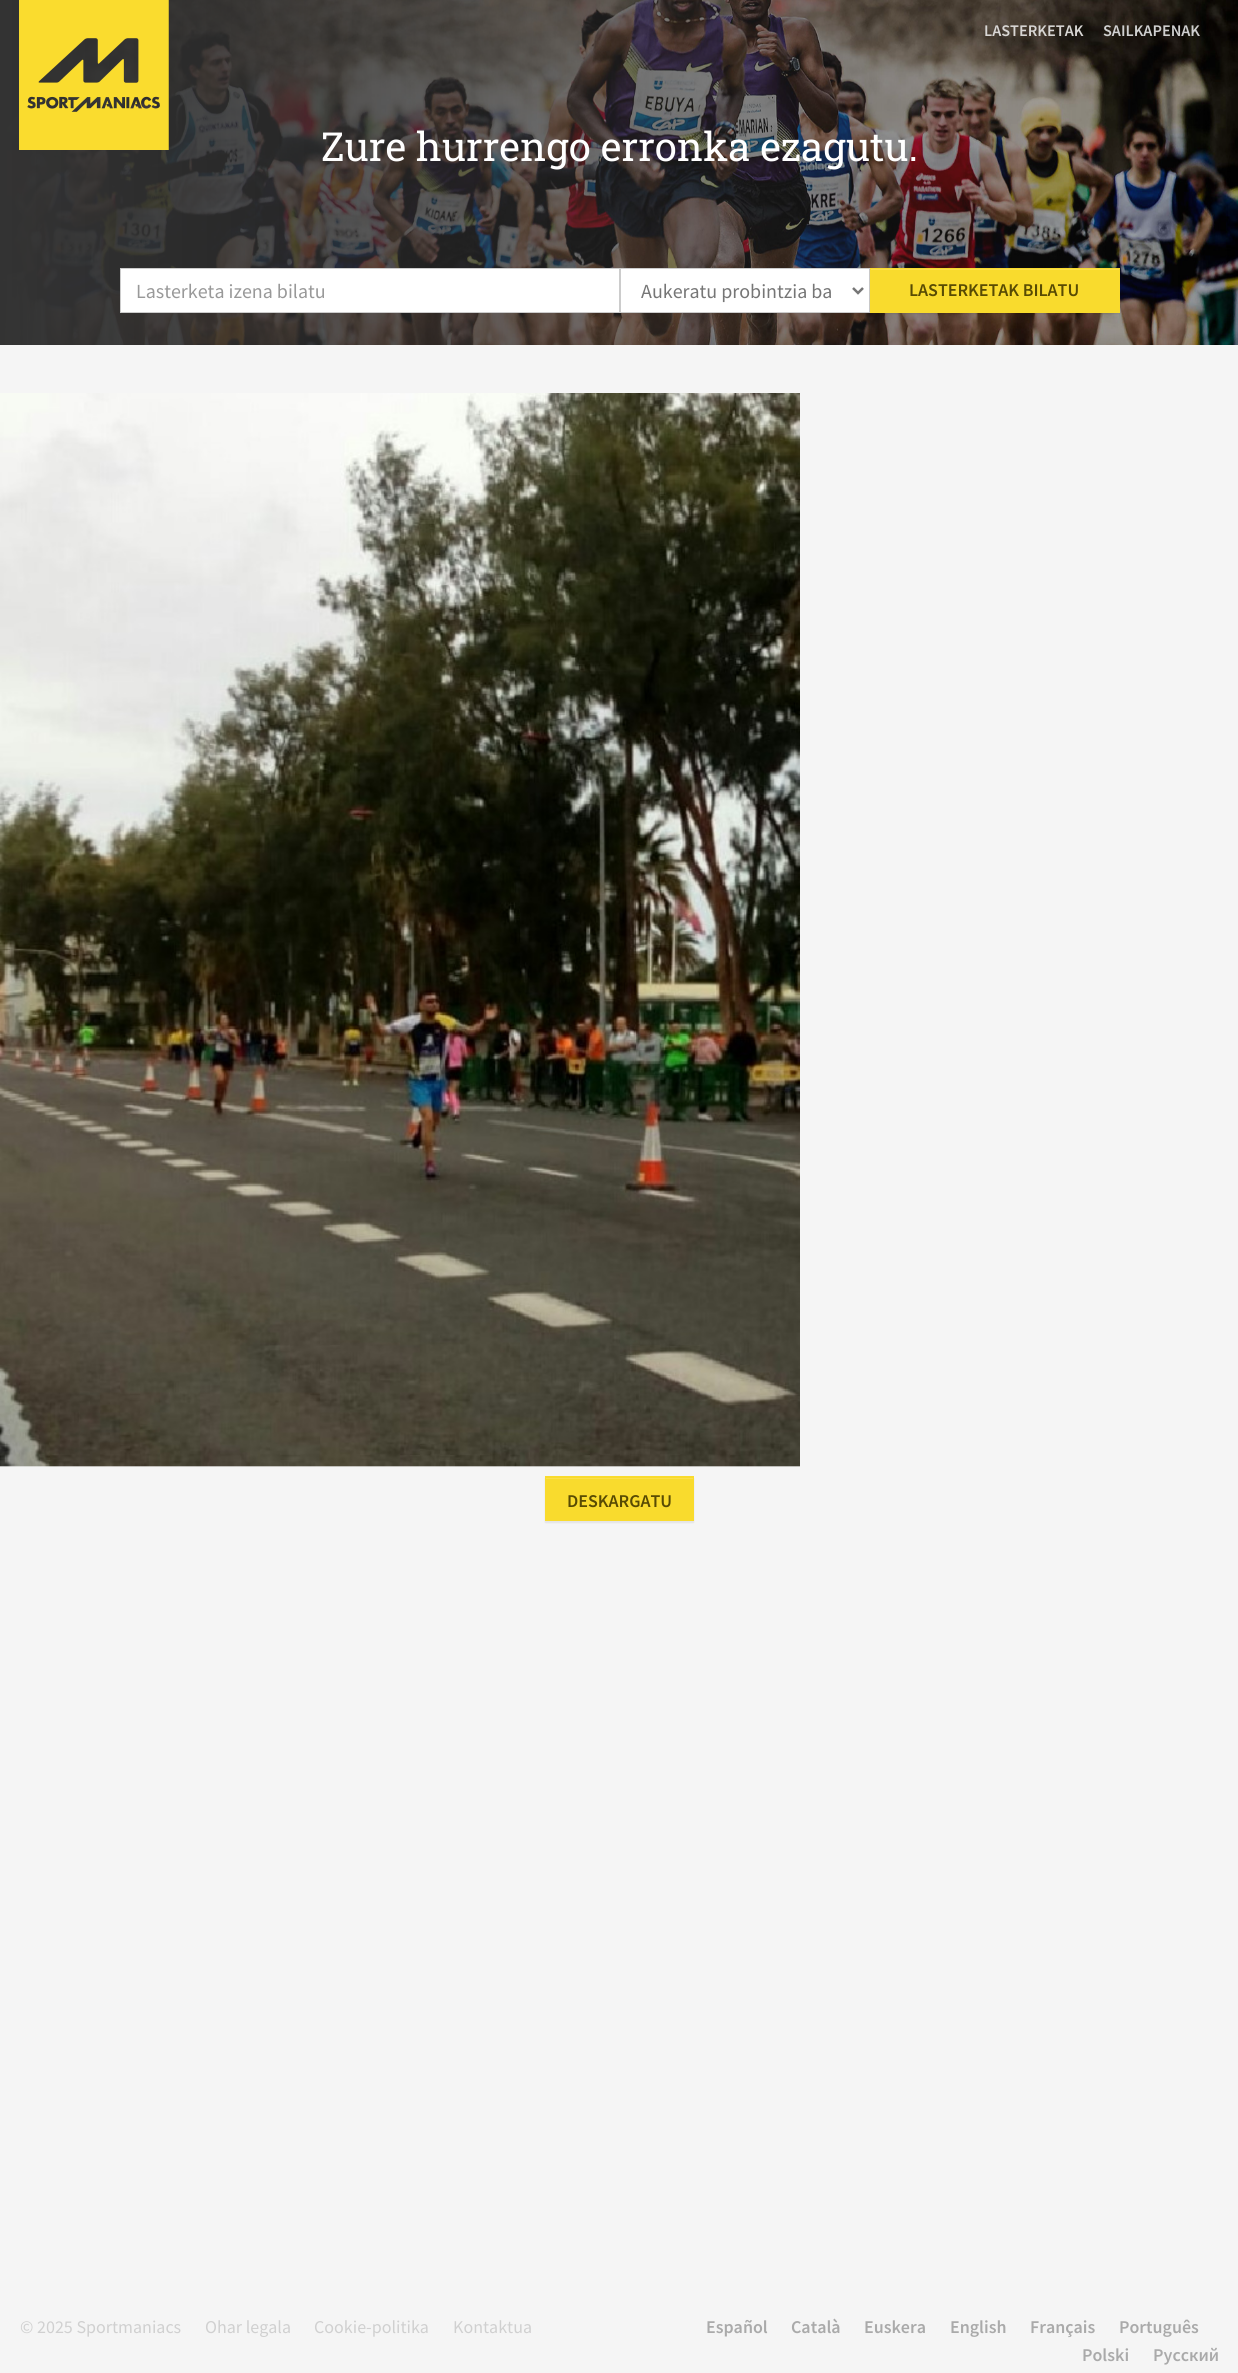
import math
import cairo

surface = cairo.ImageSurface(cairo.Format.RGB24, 1238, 2373)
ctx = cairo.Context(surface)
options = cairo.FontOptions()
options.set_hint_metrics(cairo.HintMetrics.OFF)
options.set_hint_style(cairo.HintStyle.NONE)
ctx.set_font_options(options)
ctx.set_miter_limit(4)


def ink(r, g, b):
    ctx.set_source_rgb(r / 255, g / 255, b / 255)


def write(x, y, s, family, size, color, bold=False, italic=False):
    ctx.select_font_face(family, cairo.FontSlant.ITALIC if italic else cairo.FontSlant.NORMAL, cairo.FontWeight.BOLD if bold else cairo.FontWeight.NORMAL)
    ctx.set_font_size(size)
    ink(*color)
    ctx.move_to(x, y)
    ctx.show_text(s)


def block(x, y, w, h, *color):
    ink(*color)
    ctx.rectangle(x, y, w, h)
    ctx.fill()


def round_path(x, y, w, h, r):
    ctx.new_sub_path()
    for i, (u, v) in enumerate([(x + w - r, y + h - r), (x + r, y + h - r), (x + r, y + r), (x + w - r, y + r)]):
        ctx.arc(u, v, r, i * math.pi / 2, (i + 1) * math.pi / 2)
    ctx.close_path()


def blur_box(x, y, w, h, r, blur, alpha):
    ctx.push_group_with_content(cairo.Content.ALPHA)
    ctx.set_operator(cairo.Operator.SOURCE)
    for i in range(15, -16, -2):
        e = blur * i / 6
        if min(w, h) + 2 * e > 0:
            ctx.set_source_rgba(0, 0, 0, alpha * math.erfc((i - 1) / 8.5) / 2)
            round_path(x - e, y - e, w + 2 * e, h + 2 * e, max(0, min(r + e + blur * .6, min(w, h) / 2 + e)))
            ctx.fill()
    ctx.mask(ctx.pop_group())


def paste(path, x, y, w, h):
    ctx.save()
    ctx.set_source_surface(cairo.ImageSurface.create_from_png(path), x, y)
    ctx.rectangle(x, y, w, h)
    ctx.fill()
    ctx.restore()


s1 = dict(family="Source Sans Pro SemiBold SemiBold", size=16.25, color=(216, 214, 212))
s2 = dict(family="Source Sans Pro SemiBold SemiBold", size=16.25, color=(208, 208, 208))
s3 = dict(family="Roboto Slab", size=40, color=(255, 255, 255))
s4 = dict(family="Source Sans Pro", size=20, color=(153, 153, 153))
s5 = dict(family="Source Sans Pro", size=20, color=(118, 118, 118))
s6 = dict(family="Source Sans Pro SemiBold SemiBold", size=18, color=(88, 75, 3))
s7 = dict(family="Source Sans Pro", size=18, color=(208, 208, 208))
s8 = dict(family="Source Sans Pro SemiBold SemiBold", size=18, color=(170, 170, 170))

ink(245, 245, 245)
ctx.paint()
paste("pic2.png", 0, 0, 1238, 345)
paste("pic1.png", 19, 0, 150, 150)
write(984, 36, "LASTERKETAK", **s1)
write(1103, 36, "SAILKAPENAK", **s2)
write(321, 161, "Zure hurrengo erronka ezagutu.", **s3)
ctx.rectangle(120.5, 268.5, 499, 44)
ctx.fill_preserve()
ink(204, 204, 204)
ctx.set_line_width(1)
ctx.stroke()
write(136, 298, "Lasterketa izena bilatu", **s4)
ink(255, 255, 255)
ctx.rectangle(620.5, 268.5, 249, 44)
ctx.fill_preserve()
ink(204, 204, 204)
ctx.stroke()
ctx.new_path()
ctx.move_to(853, 288)
ctx.line_to(858, 293)
ctx.line_to(863, 288)
ink(118, 118, 118)
ctx.set_line_width(2.5)
ctx.stroke()
write(641, 298, "Aukeratu probintzia ba", **s5)
ink(0, 0, 0)
blur_box(870, 269, 250, 45, 0, 0.5, 0.07)
block(870, 268, 250, 45, 249, 219, 45)
block(871, 269, 248, 1, 250, 224, 77)
write(909, 296, "LASTERKETAK BILATU", **s6)
paste("pic3.png", 0, 393, 800, 1074)
ink(0, 0, 0)
blur_box(545, 1478, 149, 45, 0, 0.5, 0.07)
block(545, 1476, 149, 45, 249, 219, 45)
block(546, 1478, 147, 1, 250, 224, 77)
write(567, 1507, "DESKARGATU", **s6)
write(20, 2333, "© 2025 Sportmaniacs", **s7)
write(205, 2333, "Ohar legala", **s7)
write(314, 2333, "Cookie-politika", **s7)
write(453, 2333, "Kontaktua", **s7)
write(706, 2333, "Español", **s8)
write(791, 2333, "Català", **s8)
write(864, 2333, "Euskera", **s8)
write(950, 2333, "English", **s8)
write(1030, 2333, "Français", **s8)
write(1119, 2333, "Português", **s8)
write(1082, 2361, "Polski", **s8)
write(1153, 2361, "Русский", **s8)
surface.write_to_png("screenshot.png")
